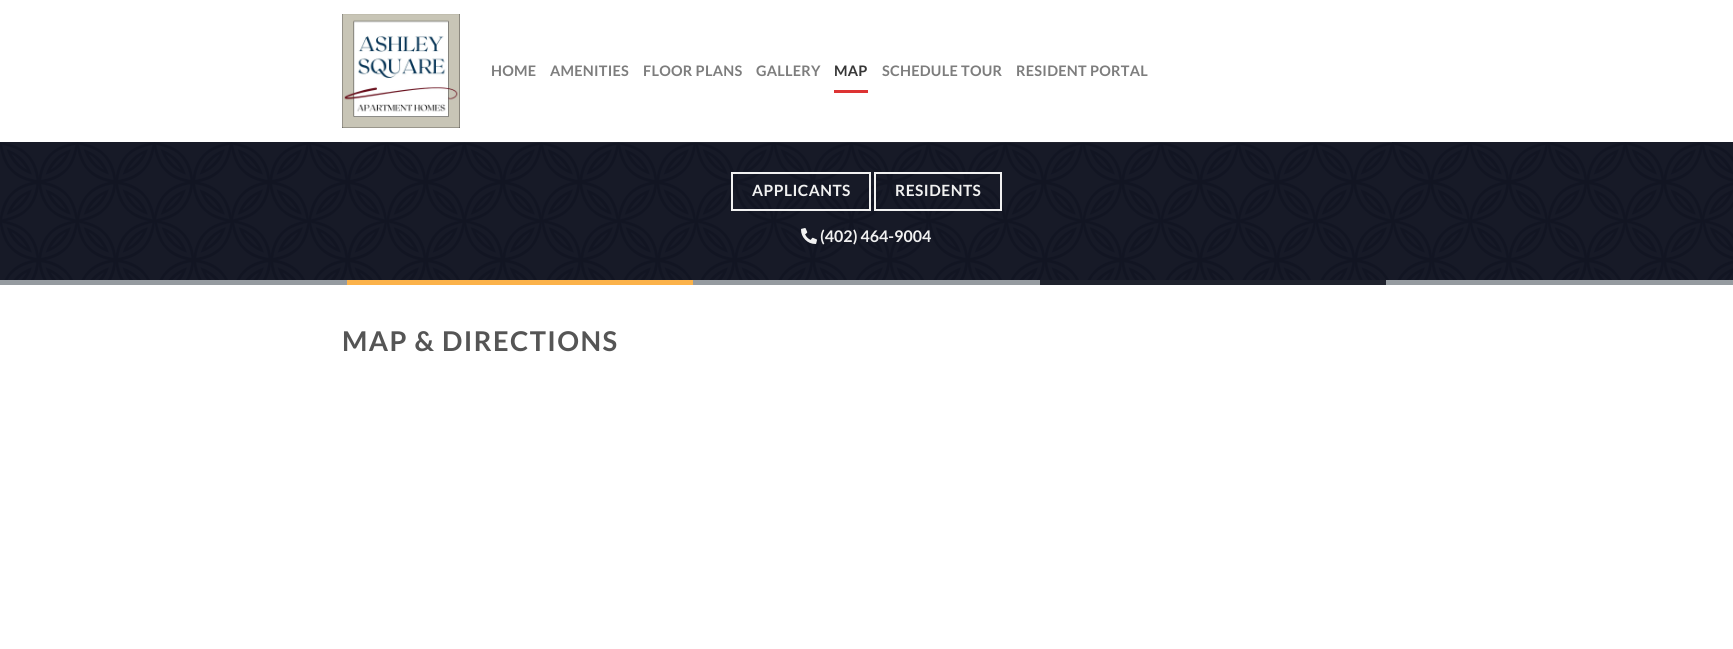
import math
import cairo

surface = cairo.ImageSurface(cairo.Format.RGB24, 1733, 649)
ctx = cairo.Context(surface)
options = cairo.FontOptions()
options.set_hint_metrics(cairo.HintMetrics.OFF)
options.set_hint_style(cairo.HintStyle.NONE)
ctx.set_font_options(options)
ctx.set_miter_limit(4)


def ink(r, g, b):
    ctx.set_source_rgb(r / 255, g / 255, b / 255)


def write(x, y, s, family, size, color, bold=False, italic=False):
    ctx.select_font_face(family, cairo.FontSlant.ITALIC if italic else cairo.FontSlant.NORMAL, cairo.FontWeight.BOLD if bold else cairo.FontWeight.NORMAL)
    ctx.set_font_size(size)
    ink(*color)
    ctx.move_to(x, y)
    ctx.show_text(s)


def write_spaced(x, y, s, letter, word):
    ctx.move_to(x, y)
    for ch in s:
        ctx.show_text(ch)
        ctx.rel_move_to(letter + word * (ch == ' '), 0)


def block(x, y, w, h, *color):
    ink(*color)
    ctx.rectangle(x, y, w, h)
    ctx.fill()


def paste(path, x, y, w, h):
    ctx.save()
    ctx.set_source_surface(cairo.ImageSurface.create_from_png(path), x, y)
    ctx.rectangle(x, y, w, h)
    ctx.fill()
    ctx.restore()


s1 = dict(family="Lato", size=16, color=(241, 241, 241), bold=True)

ink(255, 255, 255)
ctx.paint()
paste("pic1.png", 342, 14, 118, 114)
ctx.select_font_face("Lato", cairo.FontSlant.NORMAL, cairo.FontWeight.BOLD)
ctx.set_font_size(14.5)
ink(125, 125, 125)
write_spaced(491, 76, "HOME", 0.25, 0)
write_spaced(550, 76, "AMENITIES", 0.25, 0)
write_spaced(643, 76, "FLOOR PLANS", 0.25, 0)
write_spaced(756, 76, "GALLERY", 0.25, 0)
ink(54, 54, 54)
write_spaced(834, 76, "MAP", 0.25, 0)
block(834, 90, 34, 3, 221, 51, 51)
ink(125, 125, 125)
write_spaced(882, 76, "SCHEDULE TOUR", 0.25, 0)
write_spaced(1016, 76, "RESIDENT PORTAL", 0.25, 0)
block(0, 142, 1733, 138, 23, 26, 39)
paste("pic2.png", 0, 142, 1733, 138)
ctx.set_source_rgba(0.467, 0.467, 0.467, 0.1)
ctx.rectangle(342, 142, 1050, 1)
ctx.fill()
ctx.rectangle(732, 173, 138, 37)
ink(241, 241, 241)
ctx.stroke()
ctx.set_font_size(15.5)
write_spaced(752, 196, "APPLICANTS", 0.5, 0)
ctx.rectangle(875, 173, 126, 37)
ctx.stroke()
write_spaced(895, 196, "RESIDENTS", 0.5, 0)
paste("pic3.png", 801, 228, 16, 16)
write(820, 242, "(402) 464-9004", **s1)
block(0, 280, 1733, 5, 149, 155, 160)
block(347, 280, 346, 5, 251, 178, 74)
block(1040, 280, 346, 5, 31, 34, 45)
ctx.set_font_size(27.25)
ink(85, 85, 85)
write_spaced(342, 351, "MAP & DIRECTIONS", 1.4, 0)
surface.write_to_png("screenshot.png")
